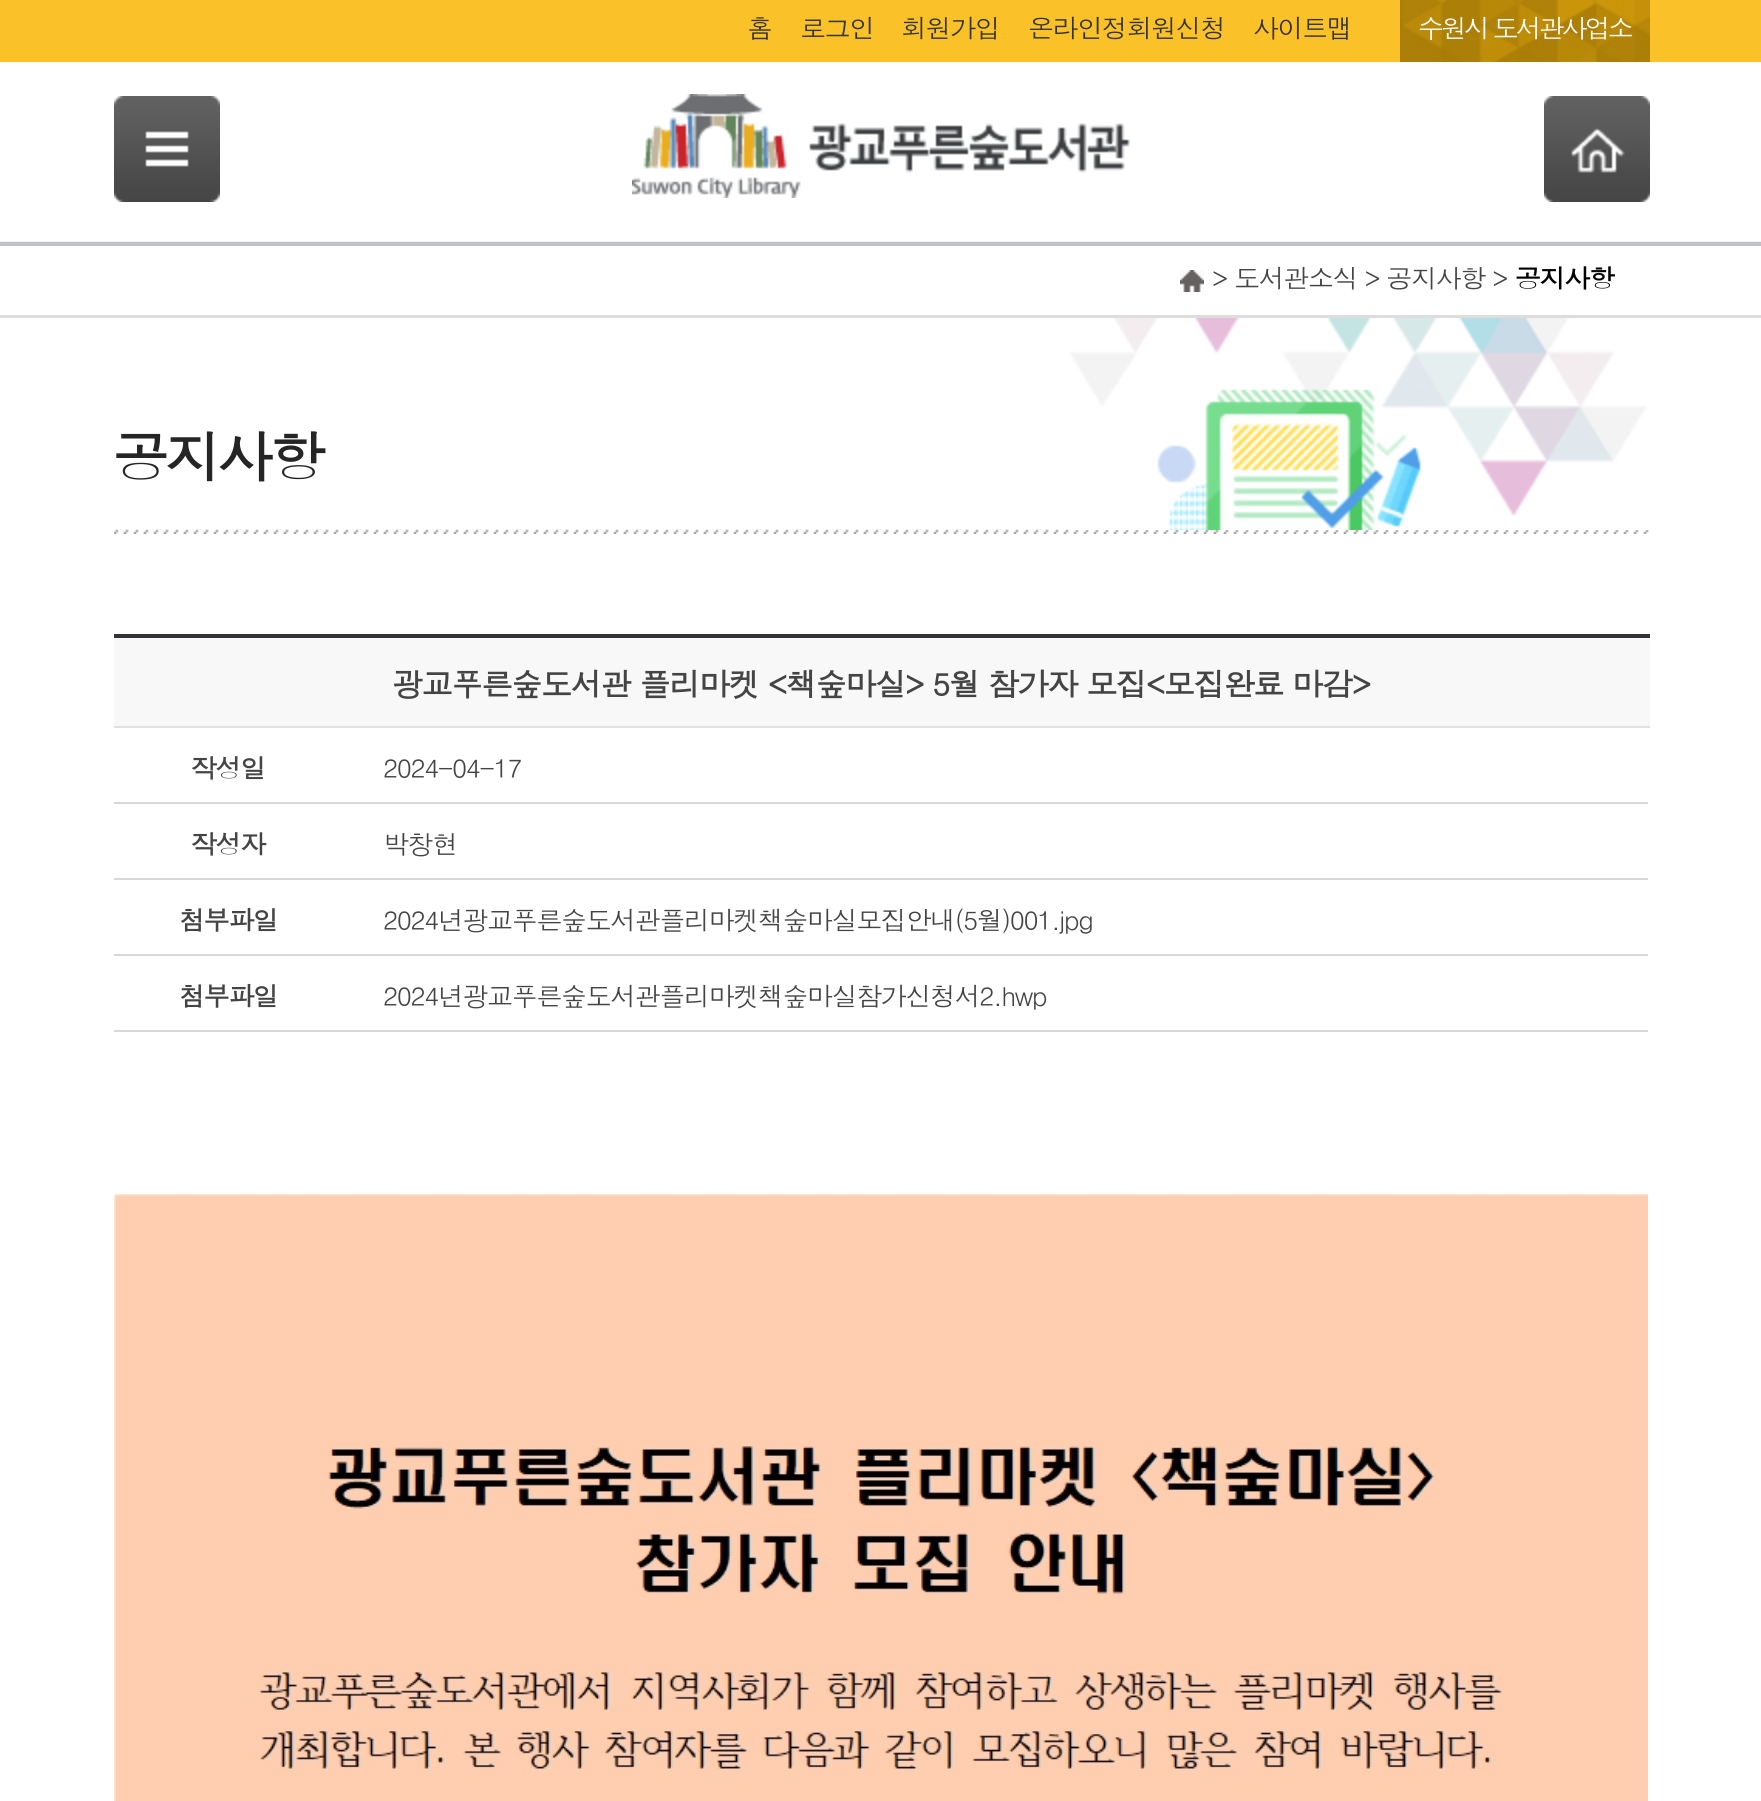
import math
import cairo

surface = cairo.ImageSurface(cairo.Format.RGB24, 1761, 1801)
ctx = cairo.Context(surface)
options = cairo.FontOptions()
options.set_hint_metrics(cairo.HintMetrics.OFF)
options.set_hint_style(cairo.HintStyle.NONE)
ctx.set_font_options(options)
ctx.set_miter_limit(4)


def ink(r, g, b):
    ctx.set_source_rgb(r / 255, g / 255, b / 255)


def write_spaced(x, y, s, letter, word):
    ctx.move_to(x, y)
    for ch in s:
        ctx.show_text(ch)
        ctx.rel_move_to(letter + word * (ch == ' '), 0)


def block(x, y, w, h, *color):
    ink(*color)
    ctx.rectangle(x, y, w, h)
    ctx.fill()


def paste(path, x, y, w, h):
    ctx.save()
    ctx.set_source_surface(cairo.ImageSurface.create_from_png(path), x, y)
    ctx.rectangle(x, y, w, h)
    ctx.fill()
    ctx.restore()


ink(255, 255, 255)
ctx.paint()
block(0, 315, 1761, 3, 221, 221, 221)
block(0, 0, 1761, 62, 251, 193, 40)
ctx.select_font_face("Dotum")
ctx.set_font_size(26)
ink(51, 51, 51)
write_spaced(747, 38, "홈", -1.4, 0)
write_spaced(800, 38, "로그인", -1.4, 0)
write_spaced(901, 38, "회원가입", -1.4, 0)
write_spaced(1028, 38, "온라인정회원신청", -1.4, 0)
write_spaced(1253, 38, "사이트맵", -1.4, 0)
paste("pic1.png", 1400, 0, 250, 62)
ink(255, 255, 255)
write_spaced(1418, 38, "수원시 도서관사업소", -3, 0)
paste("pic2.png", 0, 62, 1761, 180)
paste("pic3.png", 114, 96, 106, 106)
paste("pic4.png", 632, 94, 498, 104)
paste("pic5.png", 1544, 96, 106, 106)
block(0, 242, 1761, 4, 188, 194, 201)
paste("pic6.png", 1180, 270, 24, 22)
ink(68, 68, 68)
write_spaced(1212, 288, "> 도서관소식 > 공지사항 >", -1.4, 0)
ctx.select_font_face("Dotum", cairo.FontSlant.NORMAL, cairo.FontWeight.BOLD)
ink(0, 0, 0)
write_spaced(1515, 288, "공지사항", -1.4, 0)
paste("pic7.png", 114, 318, 1535, 216)
ctx.set_font_size(56)
ink(37, 37, 37)
write_spaced(113, 478, "공지사항", -4, 0)
block(114, 634, 1536, 4, 51, 50, 55)
block(114, 638, 1536, 88, 248, 248, 248)
block(114, 726, 1536, 2, 225, 225, 225)
ctx.set_font_size(31.2)
ink(68, 68, 68)
write_spaced(392, 696, "광교푸른숲도서관 플리마켓 <책숲마실> 5월 참가자 모집<모집완료 마감>", -1.4, 0)
block(114, 802, 1534, 2, 216, 216, 216)
ctx.set_font_size(26)
ink(68, 68, 68)
write_spaced(191, 778, "작성일", -1.4, 0)
ctx.select_font_face("Dotum")
write_spaced(383, 778, "2024-04-17", -1.4, 0)
block(114, 878, 1534, 2, 216, 216, 216)
ctx.select_font_face("Dotum", cairo.FontSlant.NORMAL, cairo.FontWeight.BOLD)
ink(68, 68, 68)
write_spaced(191, 854, "작성자", -1.4, 0)
ctx.select_font_face("Dotum")
write_spaced(383, 854, "박창현", -1.4, 0)
block(114, 954, 1534, 2, 216, 216, 216)
ctx.select_font_face("Dotum", cairo.FontSlant.NORMAL, cairo.FontWeight.BOLD)
ink(68, 68, 68)
write_spaced(179, 930, "첨부파일", -1.4, 0)
ctx.select_font_face("Dotum")
write_spaced(383, 930, "2024년광교푸른숲도서관플리마켓책숲마실모집안내(5월)001.jpg", -1.4, 0)
block(114, 1030, 1534, 2, 216, 216, 216)
ctx.select_font_face("Dotum", cairo.FontSlant.NORMAL, cairo.FontWeight.BOLD)
ink(68, 68, 68)
write_spaced(179, 1006, "첨부파일", -1.4, 0)
ctx.select_font_face("Dotum")
write_spaced(383, 1006, "2024년광교푸른숲도서관플리마켓책숲마실참가신청서2.hwp", -1.4, 0)
paste("pic8.png", 114, 1194, 1534, 607)
surface.write_to_png("screenshot.png")
